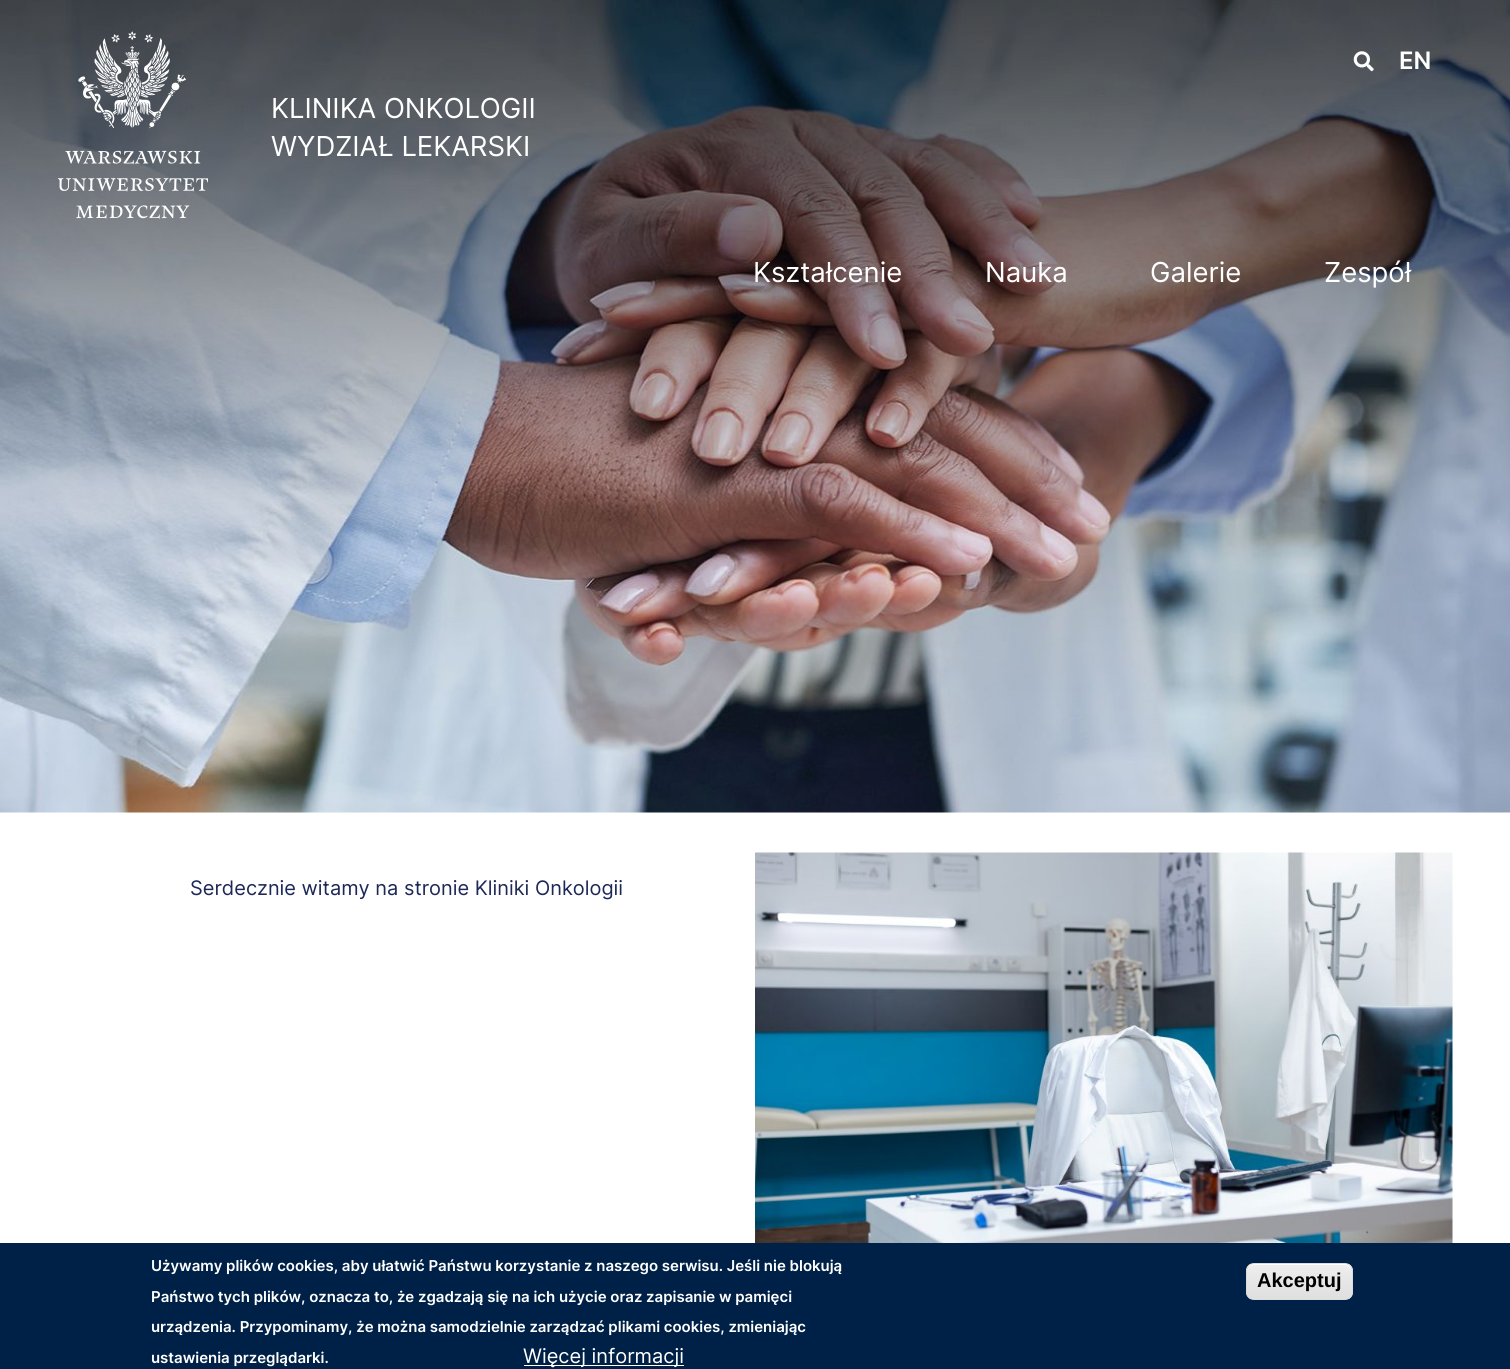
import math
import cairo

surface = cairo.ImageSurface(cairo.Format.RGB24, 1510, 1369)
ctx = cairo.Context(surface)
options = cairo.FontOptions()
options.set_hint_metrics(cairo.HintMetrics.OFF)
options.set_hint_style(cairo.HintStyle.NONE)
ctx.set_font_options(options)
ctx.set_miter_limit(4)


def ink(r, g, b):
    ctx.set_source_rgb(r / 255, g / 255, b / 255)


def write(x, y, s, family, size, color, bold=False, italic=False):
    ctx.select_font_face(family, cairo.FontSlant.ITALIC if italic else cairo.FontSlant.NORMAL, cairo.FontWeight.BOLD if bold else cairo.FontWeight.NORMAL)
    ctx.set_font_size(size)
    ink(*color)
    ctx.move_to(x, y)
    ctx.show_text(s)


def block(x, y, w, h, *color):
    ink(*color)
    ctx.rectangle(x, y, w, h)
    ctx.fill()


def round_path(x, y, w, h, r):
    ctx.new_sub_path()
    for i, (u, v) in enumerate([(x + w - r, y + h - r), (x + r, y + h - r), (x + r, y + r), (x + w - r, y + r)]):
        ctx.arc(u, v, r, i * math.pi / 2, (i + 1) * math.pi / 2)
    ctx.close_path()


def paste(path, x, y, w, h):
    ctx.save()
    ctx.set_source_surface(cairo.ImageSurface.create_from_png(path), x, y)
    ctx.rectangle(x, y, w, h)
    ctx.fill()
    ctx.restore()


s1 = dict(family="Inter SemiBold", size=24, color=(255, 255, 255))
s2 = dict(family="Inter", size=27.5, color=(255, 255, 255))
s3 = dict(family="Inter", size=20, color=(29, 39, 88))
s4 = dict(family="Inter SemiBold", size=15, color=(255, 255, 255))
s5 = dict(family="Inter", size=20, color=(255, 255, 255))
s6 = dict(family="Liberation Sans", size=20, color=(0, 0, 0), bold=True)

ink(255, 255, 255)
ctx.paint()
paste("pic3.png", 0, 0, 1510, 813)
paste("pic1.png", 1353, 51, 21, 21)
write(1399, 69, "EN", **s1)
paste("pic2.png", 58, 31, 150, 188)
write(271, 118, "KLINIKA ONKOLOGII", **s2)
write(271, 156, "WYDZIAŁ LEKARSKI", **s2)
write(753, 282, "Kształcenie", **s2)
write(985, 282, "Nauka", **s2)
write(1150, 282, "Galerie", **s2)
write(1324, 282, "Zespół", **s2)
write(190, 895, "Serdecznie witamy na stronie Kliniki Onkologii", **s3)
paste("pic4.png", 755, 852, 698, 391)
block(0, 1243, 1510, 126, 0, 33, 71)
write(151, 1271, "Używamy plików cookies, aby ułatwić Państwu korzystanie z naszego serwisu. Jeśli nie blokują", **s4)
write(151, 1302, "Państwo tych plików, oznacza to, że zgadzają się na ich użycie oraz zapisanie w pamięci", **s4)
write(151, 1332, "urządzenia. Przypominamy, że można samodzielnie zarządzać plikami cookies, zmieniając", **s4)
write(151, 1363, "ustawienia przeglądarki.", **s4)
block(524, 1365, 160, 1, 255, 255, 255)
write(523, 1363, "Więcej informacji", **s5)
ctx.save()
round_path(1246, 1263, 107, 37, 8)
ctx.clip()
gradient = cairo.LinearGradient(1299, 1264, 1299, 1299)
gradient.add_color_stop_rgba(0.05, 0.929, 0.929, 0.929, 1)
gradient.add_color_stop_rgba(1, 0.875, 0.875, 0.875, 1)
ctx.set_source(gradient)
ctx.rectangle(1246, 1264, 107, 35)
ctx.fill()
ctx.restore()
ctx.new_path()
ctx.move_to(1254, 1265)
ctx.line_to(1345, 1265)
ctx.curve_to(1348, 1265, 1351, 1268, 1351, 1271)
ctx.curve_to(1351, 1260, 1336, 1264, 1330, 1264)
ctx.line_to(1269, 1264)
ctx.curve_to(1263, 1264, 1248, 1260, 1248, 1271)
ctx.curve_to(1248, 1268, 1250, 1265, 1254, 1265)
ctx.close_path()
ctx.fill()
round_path(1246.5, 1263.5, 106, 36, 7.5)
ink(220, 220, 220)
ctx.set_line_width(1)
ctx.stroke()
write(1257, 1287, "Akceptuj", **s6)
surface.write_to_png("screenshot.png")
